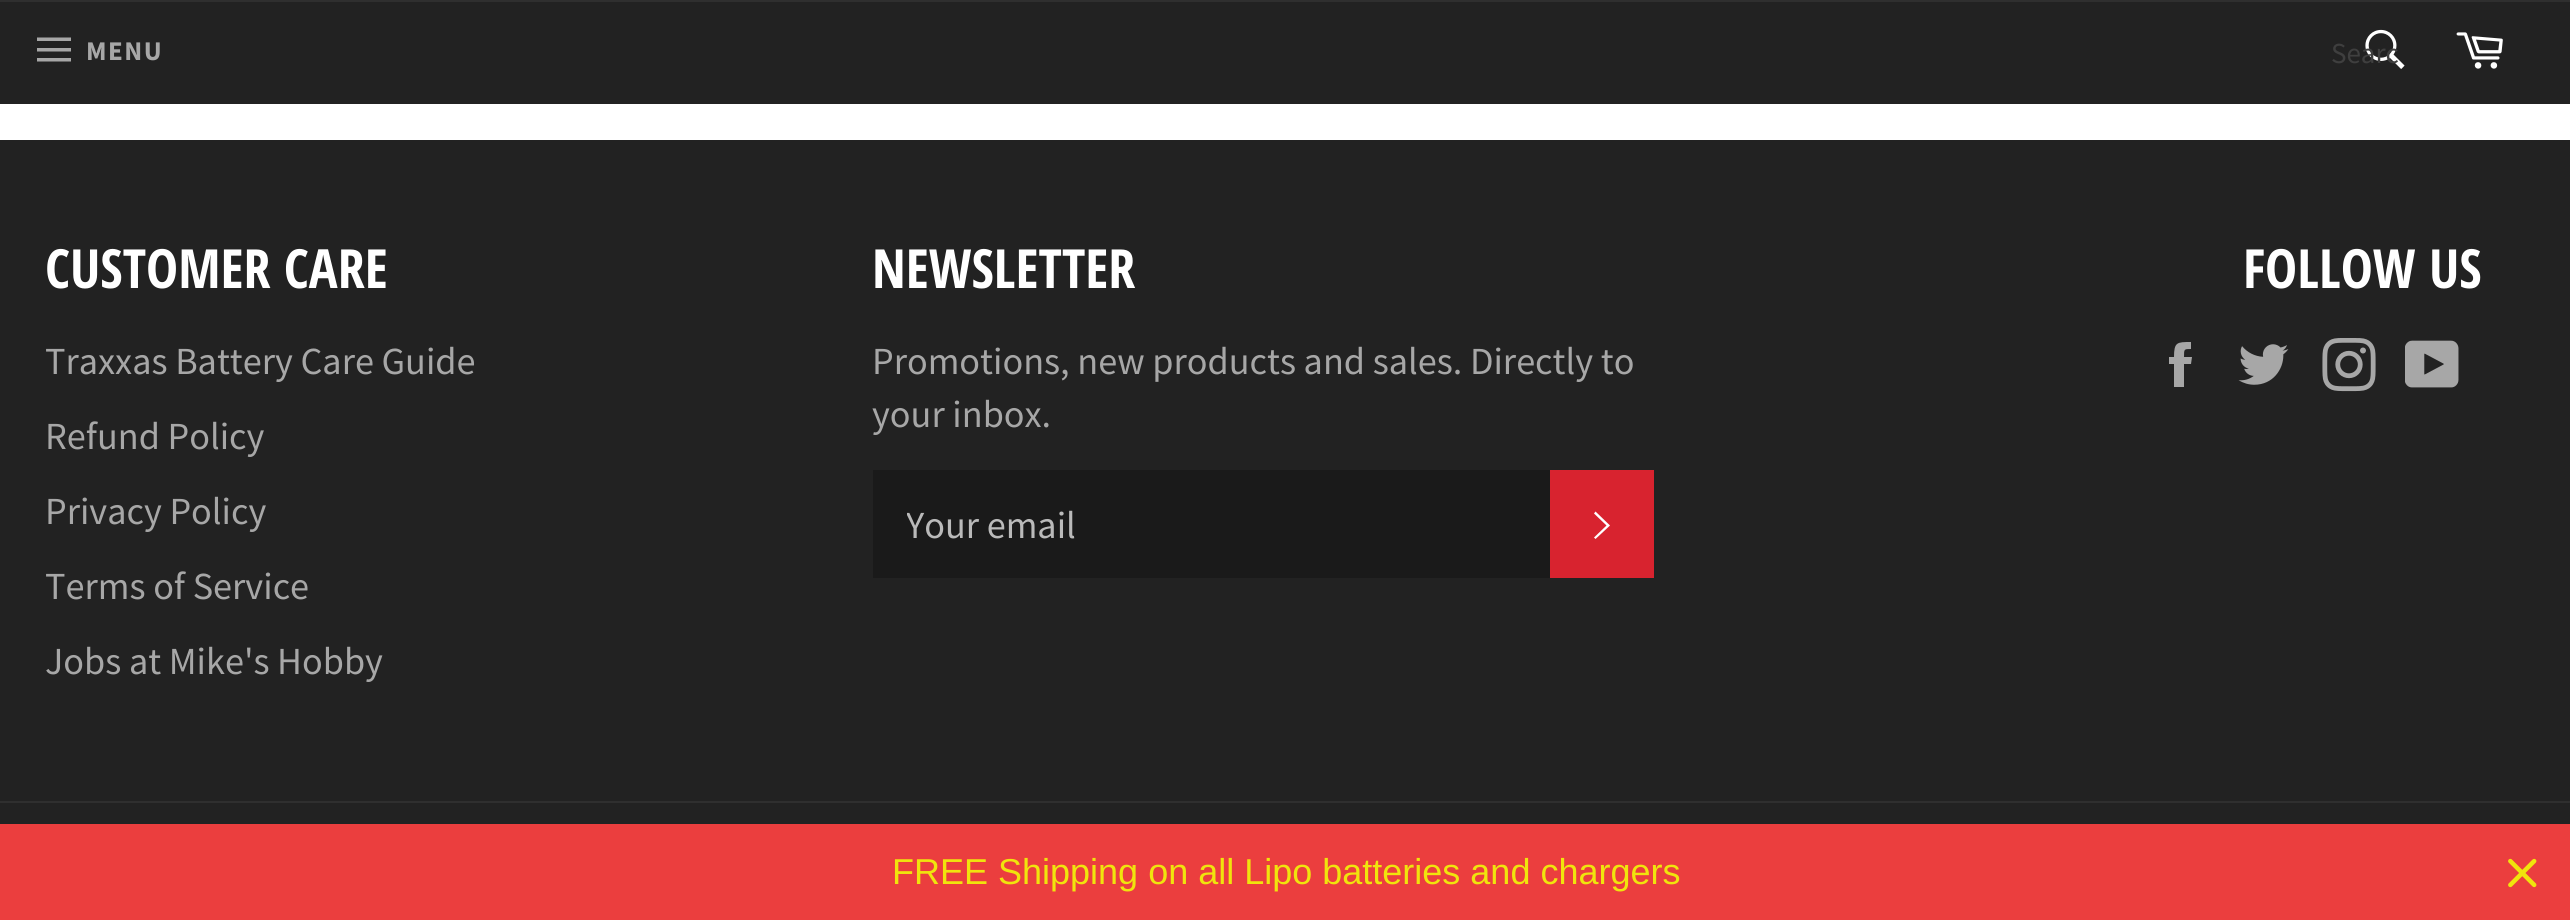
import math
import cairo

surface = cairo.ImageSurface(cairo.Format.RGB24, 2570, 920)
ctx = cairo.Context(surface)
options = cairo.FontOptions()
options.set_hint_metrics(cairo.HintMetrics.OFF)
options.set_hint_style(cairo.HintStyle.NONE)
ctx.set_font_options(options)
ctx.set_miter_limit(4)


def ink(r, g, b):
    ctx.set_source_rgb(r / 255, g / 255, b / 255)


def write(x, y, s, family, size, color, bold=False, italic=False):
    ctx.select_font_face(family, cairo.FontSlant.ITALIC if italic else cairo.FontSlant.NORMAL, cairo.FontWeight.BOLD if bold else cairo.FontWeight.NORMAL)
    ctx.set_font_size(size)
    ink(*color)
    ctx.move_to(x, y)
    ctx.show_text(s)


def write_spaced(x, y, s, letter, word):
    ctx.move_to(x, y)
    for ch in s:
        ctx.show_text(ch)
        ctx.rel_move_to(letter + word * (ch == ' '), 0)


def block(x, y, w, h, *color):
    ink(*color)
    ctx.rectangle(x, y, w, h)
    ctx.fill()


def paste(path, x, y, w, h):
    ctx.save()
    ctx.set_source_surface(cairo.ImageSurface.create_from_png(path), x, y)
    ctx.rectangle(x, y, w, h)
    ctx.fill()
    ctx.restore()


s1 = dict(family="Source Sans Pro", size=29, color=(63, 63, 63))
s2 = dict(family="Open Sans Condensed", size=54, color=(255, 255, 255), bold=True)
s3 = dict(family="Source Sans Pro", size=38.25, color=(167, 167, 167))
s4 = dict(family="Source Sans Pro", size=38.25, color=(186, 186, 186))
s5 = dict(family="Liberation Sans", size=36, color=(240, 228, 13))

ink(255, 255, 255)
ctx.paint()
block(0, 2, 2570, 102, 34, 34, 34)
block(0, 0, 2570, 2, 47, 47, 47)
ink(167, 167, 167)
ctx.new_path()
ctx.move_to(37, 48)
ctx.line_to(71, 48)
ctx.line_to(71, 51.5)
ctx.line_to(37, 51.5)
ctx.close_path()
ctx.move_to(37, 37.5)
ctx.line_to(71, 37.5)
ctx.line_to(71, 41)
ctx.line_to(37, 41)
ctx.close_path()
ctx.move_to(37, 58)
ctx.line_to(71, 58)
ctx.line_to(71, 61.5)
ctx.line_to(37, 61.5)
ctx.close_path()
ctx.fill()
ctx.select_font_face("Source Sans Pro", cairo.FontSlant.NORMAL, cairo.FontWeight.BOLD)
ctx.set_font_size(27)
write_spaced(86, 60, "MENU", 1.5, 0)
paste("pic1.png", 2365, 29, 40, 40)
write(2331, 63, "Searc", **s1)
paste("pic2.png", 2456, 32, 47, 37)
block(0, 140, 2570, 684, 34, 34, 34)
write(45, 288, "CUSTOMER CARE", **s2)
write(45, 374, "Traxxas Battery Care Guide", **s3)
write(45, 449, "Refund Policy", **s3)
write(45, 524, "Privacy Policy", **s3)
write(45, 599, "Terms of Service", **s3)
write(45, 674, "Jobs at Mike's Hobby", **s3)
write(872, 288, "NEWSLETTER", **s2)
write(872, 374, "Promotions, new products and sales. Directly to", **s3)
write(872, 427, "your inbox.", **s3)
block(873, 470, 677, 108, 26, 26, 26)
ctx.save()
ctx.rectangle(907, 500, 610, 49)
ctx.clip()
write(906, 538, "Your email", **s4)
ctx.restore()
block(1550, 470, 104, 108, 216, 35, 47)
ink(255, 255, 255)
ctx.new_path()
ctx.move_to(1594, 513.5)
ctx.line_to(1595.5, 511.5)
ctx.line_to(1610, 525.5)
ctx.line_to(1595.5, 539)
ctx.line_to(1594, 537.5)
ctx.line_to(1606.5, 525.5)
ctx.close_path()
ctx.fill()
write(2243, 288, "FOLLOW US", **s2)
ink(167, 167, 167)
ctx.new_path()
ctx.move_to(2184, 357)
ctx.curve_to(2184, 349, 2184, 349, 2191, 349)
ctx.line_to(2191, 342)
ctx.curve_to(2177, 342, 2174, 342, 2174, 357)
ctx.line_to(2169, 357)
ctx.line_to(2169, 364)
ctx.line_to(2174, 364)
ctx.line_to(2174, 387)
ctx.line_to(2184, 387)
ctx.line_to(2184, 364)
ctx.line_to(2191, 364)
ctx.line_to(2192, 357)
ctx.close_path()
ctx.fill()
paste("pic3.png", 2238, 344, 51, 41)
paste("pic4.png", 2322, 338, 54, 54)
paste("pic5.png", 2405, 340, 54, 48)
block(0, 801, 2570, 2, 47, 47, 47)
block(0, 824, 2570, 96, 235, 62, 62)
write(892, 884, "FREE Shipping on all Lipo batteries and chargers", **s5)
paste("pic6.png", 2508, 858, 29, 30)
surface.write_to_png("screenshot.png")
